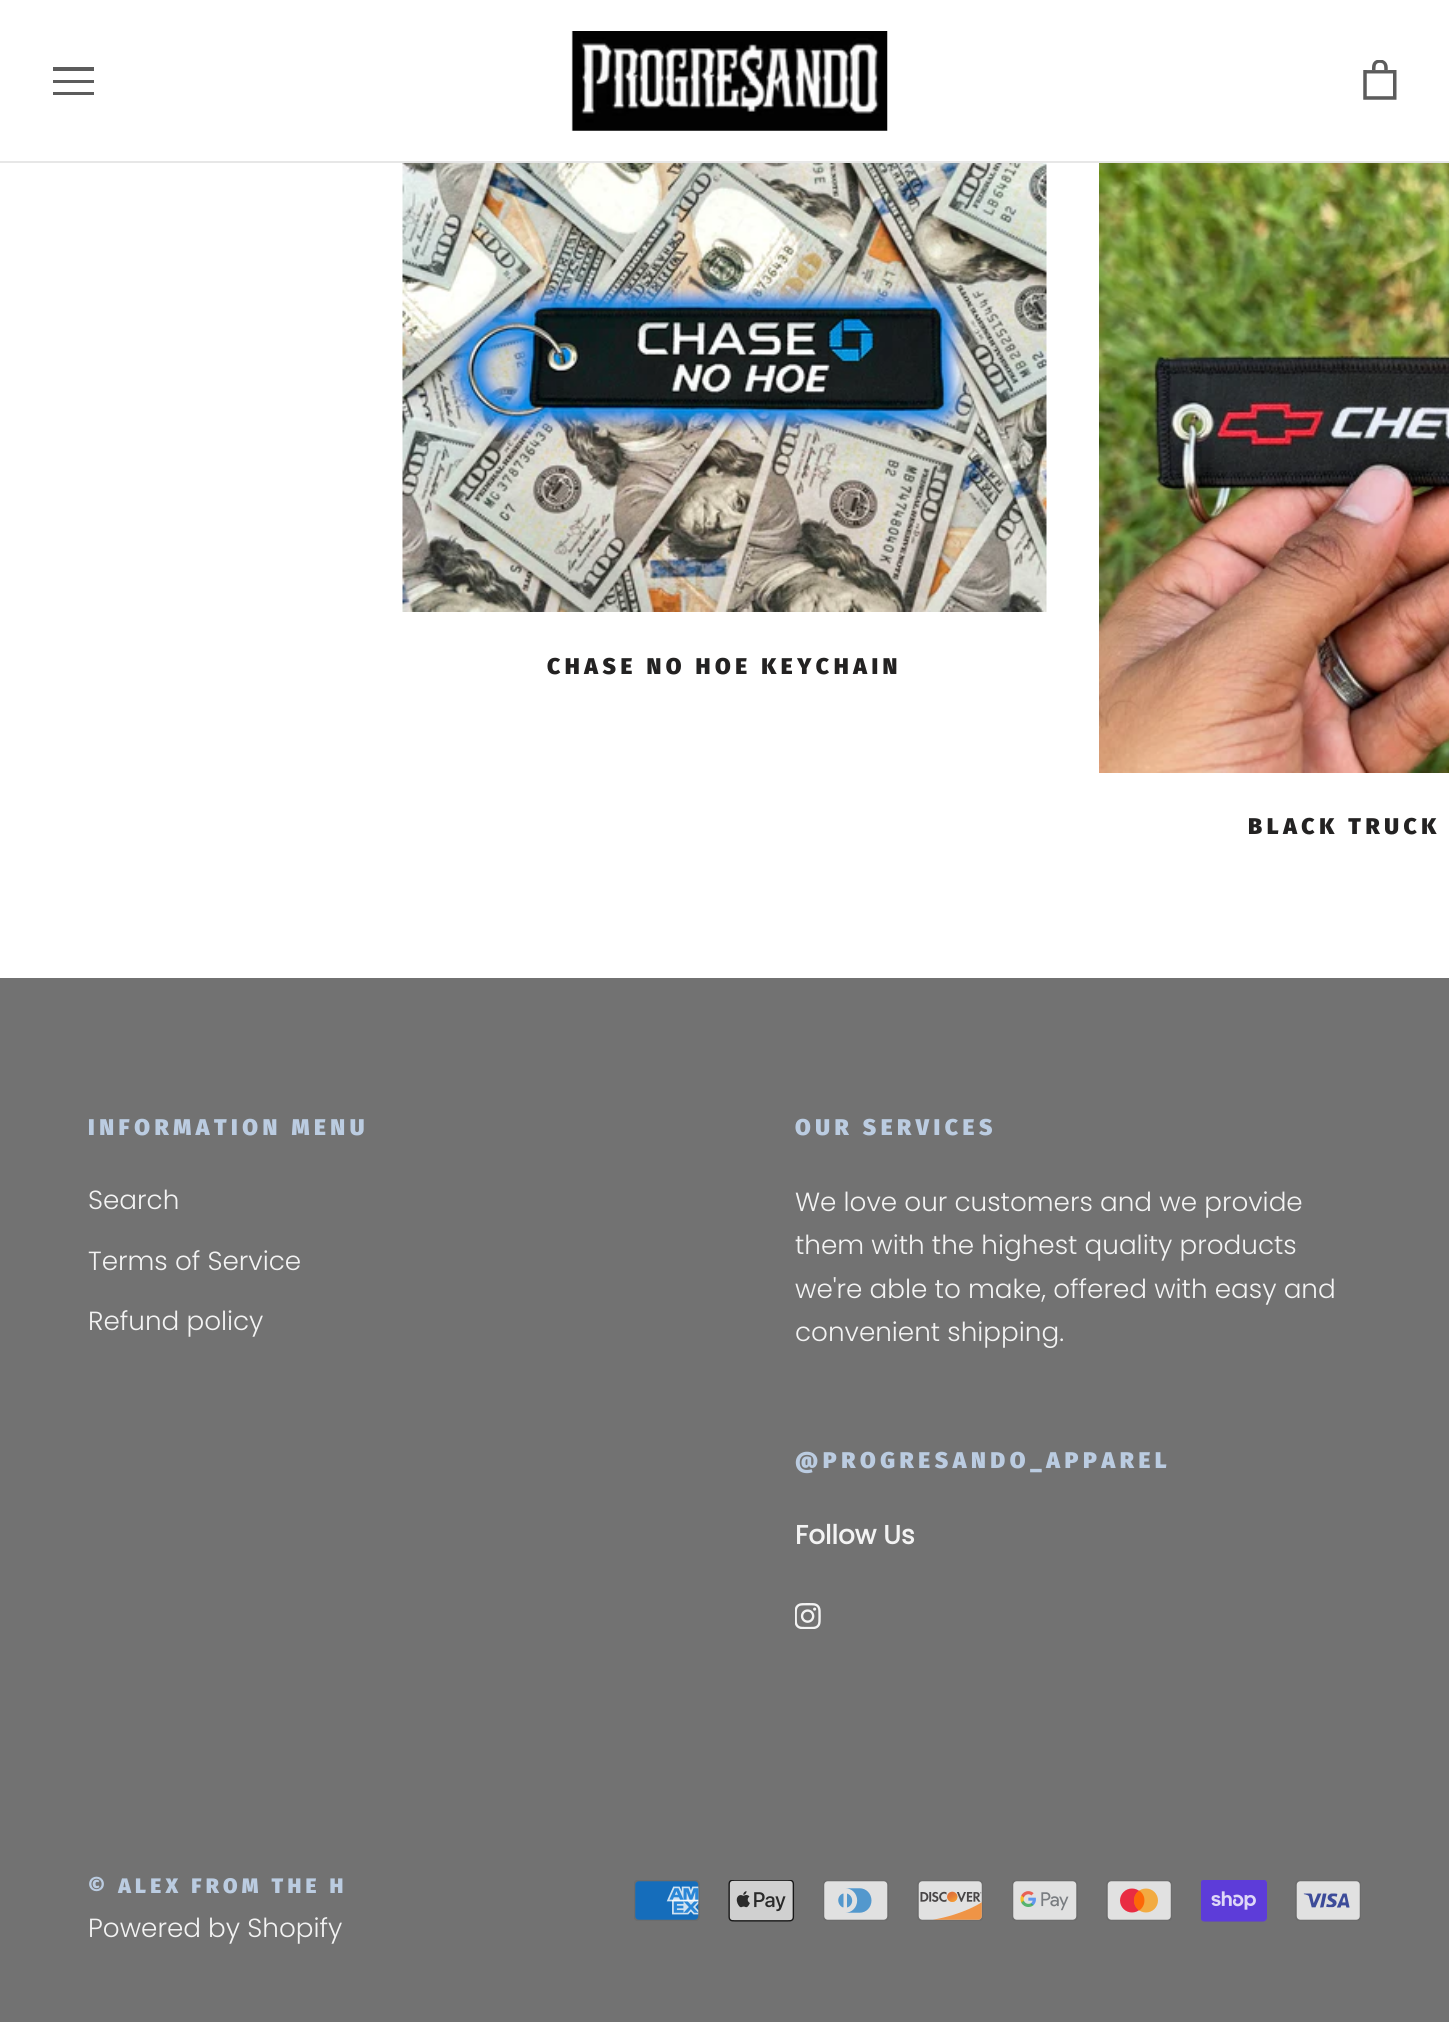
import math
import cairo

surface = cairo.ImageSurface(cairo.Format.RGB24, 1449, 2022)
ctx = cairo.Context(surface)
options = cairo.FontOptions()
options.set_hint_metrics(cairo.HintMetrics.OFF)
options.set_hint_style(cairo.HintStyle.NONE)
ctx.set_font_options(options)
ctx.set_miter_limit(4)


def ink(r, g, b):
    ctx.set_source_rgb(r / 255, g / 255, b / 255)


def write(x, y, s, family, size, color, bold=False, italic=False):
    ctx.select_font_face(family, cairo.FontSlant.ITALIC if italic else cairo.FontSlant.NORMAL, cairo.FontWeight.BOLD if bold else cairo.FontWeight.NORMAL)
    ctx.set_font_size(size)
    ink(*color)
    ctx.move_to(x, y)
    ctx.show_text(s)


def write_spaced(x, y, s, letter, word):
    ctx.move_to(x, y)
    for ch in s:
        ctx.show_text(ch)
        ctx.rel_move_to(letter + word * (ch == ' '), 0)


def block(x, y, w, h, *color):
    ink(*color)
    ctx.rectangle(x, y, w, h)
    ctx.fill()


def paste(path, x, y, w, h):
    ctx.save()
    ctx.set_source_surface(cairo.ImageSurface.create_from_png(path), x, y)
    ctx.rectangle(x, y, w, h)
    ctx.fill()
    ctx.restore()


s1 = dict(family="Poppins Light", size=26.25, color=(243, 243, 243))
s2 = dict(family="Poppins", size=26.25, color=(243, 243, 243), bold=True)

ink(255, 255, 255)
ctx.paint()
block(0, 161, 1449, 2, 231, 231, 231)
ctx.save()
ctx.rectangle(53, 67, 42, 29)
ctx.clip()
ink(92, 92, 92)
ctx.new_path()
ctx.move_to(52, 95)
ctx.line_to(52, 92)
ctx.line_to(94, 92)
ctx.line_to(94, 95)
ctx.close_path()
ctx.move_to(52, 80)
ctx.line_to(94, 80)
ctx.line_to(94, 83)
ctx.line_to(52, 83)
ctx.close_path()
ctx.move_to(52, 67)
ctx.line_to(94, 67)
ctx.line_to(94, 71)
ctx.line_to(52, 71)
ctx.close_path()
ctx.fill()
ctx.restore()
paste("pic1.png", 571, 31, 317, 100)
paste("pic2.png", 1363, 60, 34, 40)
paste("pic3.png", 402, 163, 645, 449)
ctx.select_font_face("Fira Sans Black")
ctx.set_font_size(22.75)
ink(35, 34, 34)
write_spaced(547, 674, "CHASE NO HOE KEYCHAIN", 4.55, 0)
paste("pic4.png", 1099, 163, 350, 610)
write_spaced(1248, 834, "BLACK TRUCK", 4.55, 0)
block(0, 978, 1449, 1044, 114, 114, 114)
ink(187, 204, 225)
write_spaced(88, 1135, "INFORMATION MENU", 4.55, 0)
write(88, 1209, "Search", **s1)
write(88, 1270, "Terms of Service", **s1)
write(88, 1330, "Refund policy", **s1)
ctx.select_font_face("Fira Sans Black")
ctx.set_font_size(22.75)
ink(187, 204, 225)
write_spaced(795, 1135, "OUR SERVICES", 4.55, 0)
write(795, 1211, "We love our customers and we provide", **s1)
write(795, 1254, "them with the highest quality products", **s1)
write(795, 1298, "we're able to make, offered with easy and", **s1)
write(795, 1341, "convenient shipping.", **s1)
ctx.select_font_face("Fira Sans Black")
ctx.set_font_size(22.75)
ink(187, 204, 225)
write_spaced(795, 1468, "@PROGRESANDO_APPAREL", 4.55, 0)
write(795, 1544, "Follow Us", **s2)
paste("pic5.png", 795, 1603, 26, 26)
ctx.select_font_face("Fira Sans Black")
ctx.set_font_size(21)
ink(187, 204, 225)
write_spaced(88, 1893, "© ALEX FROM THE H", 4.25, 0)
write(88, 1937, "Powered by Shopify", **s1)
paste("pic6.png", 634, 1880, 66, 41)
paste("pic7.png", 728, 1880, 67, 42)
paste("pic8.png", 823, 1880, 66, 41)
paste("pic9.png", 917, 1880, 66, 41)
paste("pic10.png", 1012, 1880, 66, 41)
paste("pic11.png", 1106, 1880, 66, 41)
paste("pic12.png", 1201, 1880, 66, 42)
paste("pic13.png", 1295, 1880, 66, 41)
surface.write_to_png("screenshot.png")
